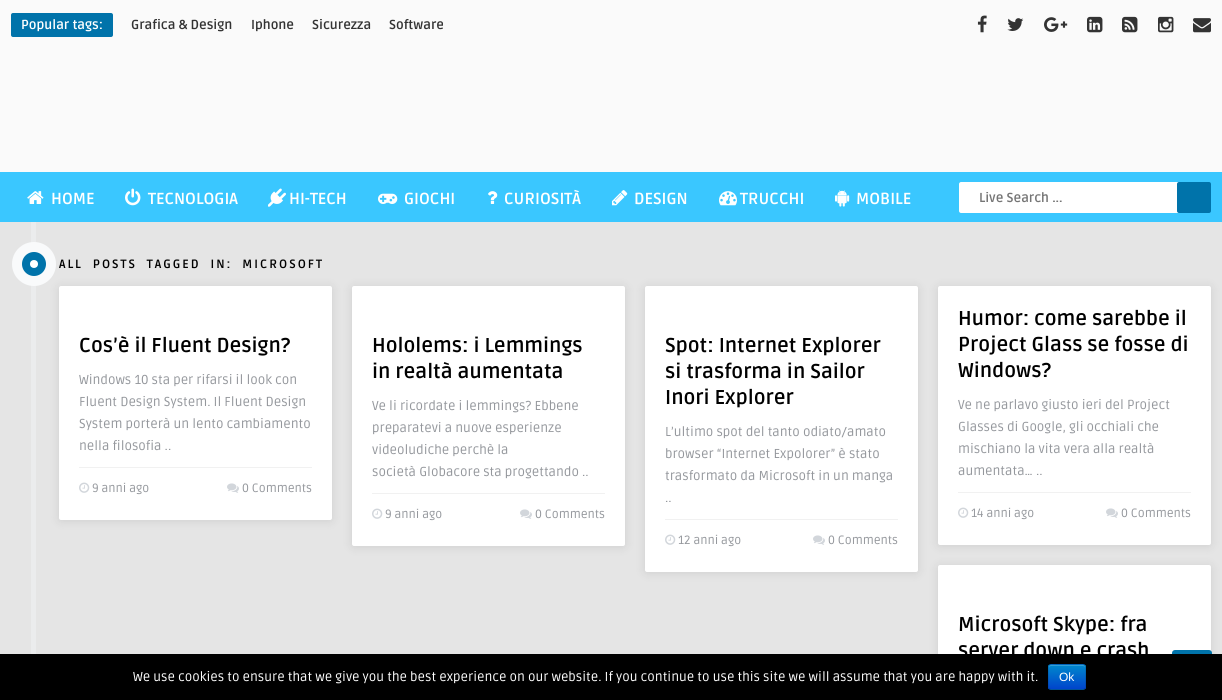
import math
import cairo

surface = cairo.ImageSurface(cairo.Format.RGB24, 1222, 700)
ctx = cairo.Context(surface)
options = cairo.FontOptions()
options.set_hint_metrics(cairo.HintMetrics.OFF)
options.set_hint_style(cairo.HintStyle.NONE)
ctx.set_font_options(options)
ctx.set_miter_limit(4)


def ink(r, g, b):
    ctx.set_source_rgb(r / 255, g / 255, b / 255)


def write(x, y, s, family, size, color, bold=False, italic=False):
    ctx.select_font_face(family, cairo.FontSlant.ITALIC if italic else cairo.FontSlant.NORMAL, cairo.FontWeight.BOLD if bold else cairo.FontWeight.NORMAL)
    ctx.set_font_size(size)
    ink(*color)
    ctx.move_to(x, y)
    ctx.show_text(s)


def write_spaced(x, y, s, letter, word):
    ctx.move_to(x, y)
    for ch in s:
        ctx.show_text(ch)
        ctx.rel_move_to(letter + word * (ch == ' '), 0)


def block(x, y, w, h, *color):
    ink(*color)
    ctx.rectangle(x, y, w, h)
    ctx.fill()


def round_path(x, y, w, h, r):
    ctx.new_sub_path()
    for i, (u, v) in enumerate([(x + w - r, y + h - r), (x + r, y + h - r), (x + r, y + r), (x + w - r, y + r)]):
        ctx.arc(u, v, r, i * math.pi / 2, (i + 1) * math.pi / 2)
    ctx.close_path()


def blur_box(x, y, w, h, r, blur, alpha):
    ctx.push_group_with_content(cairo.Content.ALPHA)
    ctx.set_operator(cairo.Operator.SOURCE)
    for i in range(15, -16, -2):
        e = blur * i / 6
        if min(w, h) + 2 * e > 0:
            ctx.set_source_rgba(0, 0, 0, alpha * math.erfc((i - 1) / 8.5) / 2)
            round_path(x - e, y - e, w + 2 * e, h + 2 * e, max(0, min(r + e + blur * .6, min(w, h) / 2 + e)))
            ctx.fill()
    ctx.mask(ctx.pop_group())


def paste(path, x, y, w, h):
    ctx.save()
    ctx.set_source_surface(cairo.ImageSurface.create_from_png(path), x, y)
    ctx.rectangle(x, y, w, h)
    ctx.fill()
    ctx.restore()


s1 = dict(family="Ruda", size=13, color=(255, 255, 255), bold=True)
s2 = dict(family="Ruda", size=13, color=(51, 51, 51), bold=True)
s3 = dict(family="Ruda", size=16, color=(255, 255, 255), bold=True)
s4 = dict(family="Ruda", size=13, color=(117, 117, 117), bold=True)
s5 = dict(family="Ruda", size=20, color=(0, 0, 0), bold=True)
s6 = dict(family="Ruda", size=13, color=(148, 151, 156))
s7 = dict(family="Ruda", size=12, color=(148, 151, 156))
s8 = dict(family="Ruda", size=13, color=(255, 255, 255))
s9 = dict(family="Liberation Sans", size=12, color=(255, 255, 255))

ink(229, 229, 229)
ctx.paint()
block(0, 0, 1222, 172, 250, 250, 250)
ink(0, 115, 170)
round_path(11, 13, 102, 24, 2)
ctx.fill()
write(21, 29, "Popular tags:", **s1)
write(131, 29, "Grafica & Design", **s2)
write(251, 29, "Iphone", **s2)
write(312, 29, "Sicurezza", **s2)
write(389, 29, "Software", **s2)
paste("pic1.png", 977, 15, 10, 18)
paste("pic2.png", 1007, 18, 17, 13)
paste("pic3.png", 1044, 17, 24, 15)
paste("pic4.png", 1087, 16, 16, 17)
paste("pic5.png", 1122, 16, 16, 17)
paste("pic6.png", 1158, 16, 16, 17)
paste("pic7.png", 1193, 18, 18, 15)
block(0, 172, 1222, 50, 58, 199, 255)
paste("pic8.png", 27, 191, 17, 13)
write(51, 204, "HOME", **s3)
paste("pic9.png", 125, 188, 16, 18)
write(148, 204, "TECNOLOGIA", **s3)
paste("pic10.png", 268, 188, 18, 19)
write(289, 204, "HI-TECH", **s3)
paste("pic11.png", 378, 193, 20, 11)
write(404, 204, "GIOCHI", **s3)
paste("pic12.png", 488, 191, 10, 13)
write(504, 204, "CURIOSITÀ", **s3)
paste("pic13.png", 612, 190, 16, 16)
write(634, 204, "DESIGN", **s3)
paste("pic14.png", 719, 191, 18, 15)
write(740, 204, "TRUCCHI", **s3)
paste("pic15.png", 835, 190, 15, 17)
write(856, 204, "MOBILE", **s3)
ctx.new_path()
ctx.move_to(961, 182)
ctx.line_to(1179, 182)
ctx.line_to(1179, 213)
ctx.line_to(961, 213)
ctx.curve_to(960, 213, 959, 212, 959, 211)
ctx.line_to(959, 184)
ctx.curve_to(959, 183, 960, 182, 961, 182)
ctx.close_path()
ctx.fill()
write(979, 202, "Live Search ...", **s4)
ink(0, 115, 170)
round_path(1177, 182, 34, 31, 2)
ctx.fill()
block(31, 222, 5, 432, 235, 236, 237)
ink(0, 115, 170)
ctx.arc(34, 264, 17, 0, 2 * math.pi)
ctx.fill_preserve()
ink(249, 250, 251)
ctx.set_line_width(10)
ctx.stroke()
ink(255, 255, 255)
ctx.arc(34, 264, 4, 0, 2 * math.pi)
ctx.fill()
ctx.set_font_size(12)
ink(0, 0, 0)
write_spaced(59, 268, "ALL POSTS TAGGED IN: MICROSOFT", 2, 5)
ink(0, 0, 0)
blur_box(59, 287, 273, 234, 2, 5, 0.1)
ink(255, 255, 255)
round_path(59, 286, 273, 234, 2)
ctx.fill()
write(79, 352, "Cos’è il Fluent Design?", **s5)
write(79, 384, "Windows 10 sta per rifarsi il look con", **s6)
write(79, 406, "Fluent Design System. Il Fluent Design", **s6)
write(79, 428, "System porterà un lento cambiamento", **s6)
write(79, 450, "nella filosofia ..", **s6)
block(79, 467, 233, 1, 241, 241, 241)
paste("pic16.png", 79, 482, 11, 11)
write(92, 492, "9 anni ago", **s7)
paste("pic17.png", 227, 483, 12, 10)
write(242, 492, "0 Comments", **s7)
ink(0, 0, 0)
blur_box(352, 287, 273, 260, 2, 5, 0.1)
ink(255, 255, 255)
round_path(352, 286, 273, 260, 2)
ctx.fill()
write(372, 352, "Hololems: i Lemmings", **s5)
write(372, 378, "in realtà aumentata", **s5)
write(372, 410, "Ve li ricordate i lemmings? Ebbene", **s6)
write(372, 432, "preparatevi a nuove esperienze", **s6)
write(372, 454, "videoludiche perchè la", **s6)
write(372, 476, "società Globacore sta progettando ..", **s6)
block(372, 493, 233, 1, 241, 241, 241)
paste("pic16.png", 372, 508, 11, 11)
write(385, 518, "9 anni ago", **s7)
paste("pic17.png", 520, 509, 12, 10)
write(535, 518, "0 Comments", **s7)
ink(0, 0, 0)
blur_box(645, 287, 273, 286, 2, 5, 0.1)
ink(255, 255, 255)
round_path(645, 286, 273, 286, 2)
ctx.fill()
write(665, 352, "Spot: Internet Explorer", **s5)
write(665, 378, "si trasforma in Sailor", **s5)
write(665, 404, "Inori Explorer", **s5)
write(665, 436, "L’ultimo spot del tanto odiato/amato", **s6)
write(665, 458, "browser “Internet Expolorer” è stato", **s6)
write(665, 480, "trasformato da Microsoft in un manga", **s6)
write(665, 502, "..", **s6)
block(665, 519, 233, 1, 241, 241, 241)
paste("pic16.png", 665, 534, 11, 11)
write(678, 544, "12 anni ago", **s7)
paste("pic17.png", 813, 535, 12, 10)
write(828, 544, "0 Comments", **s7)
ink(0, 0, 0)
blur_box(938, 287, 273, 259, 2, 5, 0.1)
ink(255, 255, 255)
round_path(938, 286, 273, 259, 2)
ctx.fill()
write(958, 325, "Humor: come sarebbe il", **s5)
write(958, 351, "Project Glass se fosse di", **s5)
write(958, 377, "Windows?", **s5)
write(958, 409, "Ve ne parlavo giusto ieri del Project", **s6)
write(958, 431, "Glasses di Google, gli occhiali che", **s6)
write(958, 453, "mischiano la vita vera alla realtà", **s6)
write(958, 475, "aumentata… ..", **s6)
block(958, 492, 233, 1, 241, 241, 241)
paste("pic16.png", 958, 507, 11, 11)
write(971, 517, "14 anni ago", **s7)
paste("pic17.png", 1106, 508, 12, 10)
write(1121, 517, "0 Comments", **s7)
ink(0, 0, 0)
blur_box(938, 566, 273, 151, 2, 5, 0.1)
ink(255, 255, 255)
round_path(938, 565, 273, 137, 2)
ctx.fill()
write(958, 631, "Microsoft Skype: fra", **s5)
write(958, 657, "server down e crash", **s5)
ink(0, 115, 170)
round_path(1172, 650, 40, 40, 3)
ctx.fill()
block(0, 654, 1222, 46, 0, 0, 0)
write(133, 681, "We use cookies to ensure that we give you the best experience on our website. If you continue to use this site we will assume that you are happy with it.", **s8)
ink(0, 109, 204)
round_path(1048, 664, 38, 26, 3)
ctx.fill()
ctx.save()
round_path(1048, 664, 38, 26, 3)
ctx.clip()
gradient = cairo.LinearGradient(1067, 665, 1067, 689)
gradient.add_color_stop_rgba(0, 0, 0.533, 0.8, 1)
gradient.add_color_stop_rgba(1, 0, 0.267, 0.8, 1)
ctx.set_source(gradient)
ctx.rectangle(1048, 665, 38, 24)
ctx.fill()
ctx.restore()
ctx.set_source_rgba(1, 1, 1, 0.2)
ctx.new_path()
ctx.move_to(1051, 666)
ctx.line_to(1083, 666)
ctx.curve_to(1084, 666, 1085, 667, 1085, 668)
ctx.curve_to(1085, 663.5, 1081.5, 665, 1077.5, 665)
ctx.line_to(1056.5, 665)
ctx.curve_to(1052.5, 665, 1049, 663.5, 1049, 668)
ctx.curve_to(1049, 667, 1050, 666, 1051, 666)
ctx.close_path()
ctx.fill()
ctx.new_path()
ctx.move_to(1085, 689)
ctx.curve_to(1084.5, 689, 1083.5, 689.5, 1083, 689.5)
ctx.line_to(1051, 689.5)
ctx.curve_to(1050.5, 689.5, 1049.5, 689, 1049, 689)
ctx.set_source_rgba(0, 0, 0, 0.25)
ctx.set_line_width(1)
ctx.stroke()
ctx.new_path()
ctx.move_to(1049, 689)
ctx.curve_to(1049, 688.5, 1048.5, 687.5, 1048.5, 687)
ctx.line_to(1048.5, 667)
ctx.curve_to(1048.5, 666.5, 1049, 665.5, 1049, 665)
ctx.curve_to(1049.5, 665, 1050.5, 664.5, 1051, 664.5)
ctx.line_to(1083, 664.5)
ctx.curve_to(1083.5, 664.5, 1084.5, 665, 1085, 665)
ctx.curve_to(1085, 665.5, 1085.5, 666.5, 1085.5, 667)
ctx.line_to(1085.5, 687)
ctx.curve_to(1085.5, 687.5, 1085, 688.5, 1085, 689)
ctx.set_source_rgba(0, 0, 0, 0.1)
ctx.stroke()
write(1059, 681, "Ok", **s9)
surface.write_to_png("screenshot.png")
